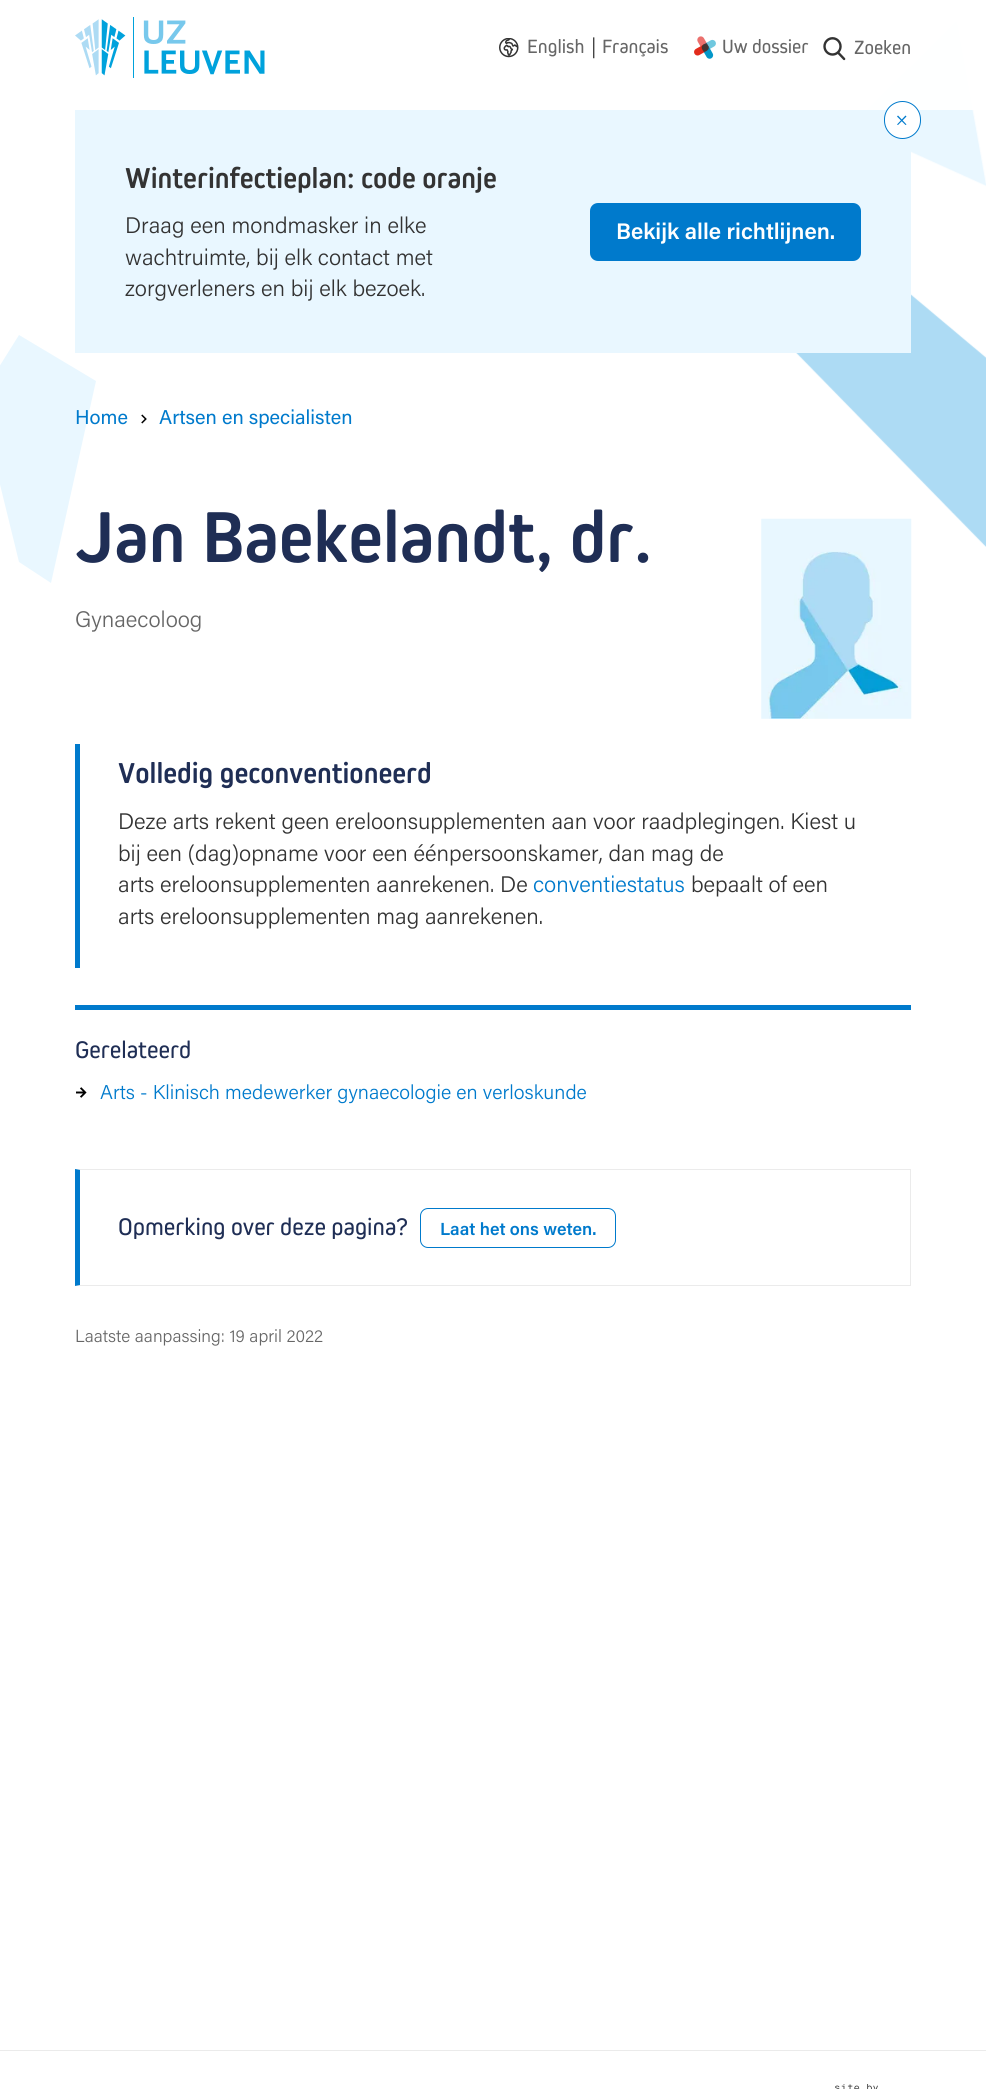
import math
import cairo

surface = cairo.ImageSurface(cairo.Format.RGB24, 986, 2089)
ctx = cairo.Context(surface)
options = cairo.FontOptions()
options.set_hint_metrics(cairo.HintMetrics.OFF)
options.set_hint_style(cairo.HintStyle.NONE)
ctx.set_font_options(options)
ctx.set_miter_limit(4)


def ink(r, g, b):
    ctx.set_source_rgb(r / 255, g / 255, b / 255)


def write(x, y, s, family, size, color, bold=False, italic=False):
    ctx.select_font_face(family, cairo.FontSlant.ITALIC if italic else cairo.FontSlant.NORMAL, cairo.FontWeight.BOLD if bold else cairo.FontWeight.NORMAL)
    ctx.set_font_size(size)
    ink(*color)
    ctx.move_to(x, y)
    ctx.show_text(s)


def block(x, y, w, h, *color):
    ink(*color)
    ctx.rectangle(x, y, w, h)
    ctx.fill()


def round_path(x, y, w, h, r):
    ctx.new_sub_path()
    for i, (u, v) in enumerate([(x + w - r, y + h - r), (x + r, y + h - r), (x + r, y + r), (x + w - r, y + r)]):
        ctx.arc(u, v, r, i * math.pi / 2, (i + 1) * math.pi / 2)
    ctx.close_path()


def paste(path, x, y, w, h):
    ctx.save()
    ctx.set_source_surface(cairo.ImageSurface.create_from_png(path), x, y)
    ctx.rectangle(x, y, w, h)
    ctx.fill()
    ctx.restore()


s1 = dict(family="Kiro", size=20, color=(102, 102, 102))
s2 = dict(family="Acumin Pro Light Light", size=20, color=(51, 51, 51))
s3 = dict(family="Kiro", size=30, color=(51, 51, 51), bold=True)
s4 = dict(family="Acumin Pro Light Light", size=22.5, color=(51, 51, 51))
s5 = dict(family="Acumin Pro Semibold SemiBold", size=22.5, color=(255, 255, 255))
s6 = dict(family="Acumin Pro", size=20, color=(0, 122, 204))
s7 = dict(family="Kiro", size=75, color=(31, 46, 85), bold=True)
s8 = dict(family="Acumin Pro Light Light", size=22.5, color=(102, 102, 102))
s9 = dict(family="Kiro", size=30, color=(31, 46, 85), bold=True)
s10 = dict(family="Acumin Pro Light Light", size=22.5, color=(0, 122, 204))
s11 = dict(family="Kiro", size=25, color=(31, 46, 85))
s12 = dict(family="Acumin Pro Light Light", size=20, color=(0, 122, 204))
s13 = dict(family="Acumin Pro Semibold SemiBold", size=17.5, color=(0, 122, 204))
s14 = dict(family="Acumin Pro Light Light", size=17.5, color=(102, 102, 102))

ink(255, 255, 255)
ctx.paint()
ink(233, 247, 255)
ctx.new_path()
ctx.move_to(19, 562)
ctx.line_to(51, 583)
ctx.line_to(96, 381)
ctx.line_to(19, 335)
ctx.line_to(-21, 399)
ctx.close_path()
ctx.fill()
paste("pic1.png", 796, 21, 190, 526)
ctx.set_source_rgba(1, 1, 1, 0.95)
ctx.rectangle(866, 21, 108, 89)
ctx.fill()
paste("pic2.png", 75, 17, 190, 61)
paste("pic3.png", 499, 38, 20, 20)
write(527, 53, "English", **s1)
write(591, 53, "|", **s2)
write(602, 53, "Français", **s1)
paste("pic4.png", 694, 36, 22, 23)
write(722, 53, "Uw dossier", **s1)
paste("pic5.png", 823, 37, 23, 24)
write(854, 54, "Zoeken", **s1)
block(75, 110, 836, 243, 233, 247, 255)
ink(255, 255, 255)
round_path(884.5, 101.5, 36, 37, 18)
ctx.fill_preserve()
ink(0, 122, 204)
ctx.set_line_width(1)
ctx.stroke()
ctx.new_path()
ctx.move_to(898, 115.5)
ctx.line_to(906.5, 124.5)
ctx.line_to(905.5, 125)
ctx.line_to(897, 116.5)
ctx.close_path()
ctx.fill()
ctx.new_path()
ctx.move_to(897, 124.5)
ctx.line_to(905.5, 115.5)
ctx.line_to(906.5, 116.5)
ctx.line_to(898, 125)
ctx.close_path()
ctx.fill()
write(125, 188, "Winterinfectieplan: code oranje", **s3)
write(125, 233, "Draag een mondmasker in elke", **s4)
write(125, 265, "wachtruimte, bij elk contact met", **s4)
write(125, 296, "zorgverleners en bij elk bezoek.", **s4)
ink(0, 122, 204)
round_path(590, 203, 271, 58, 8)
ctx.fill()
write(616, 239, "Bekijk alle richtlijnen.", **s5)
write(75, 424, "Home", **s6)
paste("pic6.png", 141, 414, 6, 10)
write(159, 424, "Artsen en specialisten", **s6)
write(75, 562, "Jan Baekelandt, dr.", **s7)
write(75, 627, "Gynaecoloog", **s8)
paste("pic7.png", 761, 518, 151, 201)
block(75, 744, 5, 224, 0, 122, 204)
write(118, 783, "Volledig geconventioneerd", **s9)
write(118, 829, "Deze arts rekent geen ereloonsupplementen aan voor raadplegingen. Kiest u", **s4)
write(118, 861, "bij een (dag)opname voor een éénpersoonskamer, dan mag de", **s4)
write(118, 892, "arts ereloonsupplementen aanrekenen. De", **s4)
write(533, 892, "conventiestatus", **s10)
write(691, 892, "bepaalt of een", **s4)
write(118, 924, "arts ereloonsupplementen mag aanrekenen.", **s4)
block(75, 1005, 836, 5, 0, 122, 204)
write(75, 1058, "Gerelateerd", **s11)
paste("pic8.png", 76, 1087, 11, 11)
write(100, 1099, "Arts - Klinisch medewerker gynaecologie en verloskunde", **s12)
ink(235, 235, 235)
ctx.new_path()
ctx.move_to(75, 1169)
ctx.line_to(911, 1169)
ctx.line_to(910, 1170)
ctx.line_to(80, 1170)
ctx.close_path()
ctx.fill()
block(910, 1169, 1, 117, 235, 235, 235)
ctx.new_path()
ctx.move_to(911, 1286)
ctx.line_to(75, 1286)
ctx.line_to(80, 1285)
ctx.line_to(910, 1285)
ctx.close_path()
ctx.fill()
ink(0, 122, 204)
ctx.new_path()
ctx.move_to(75, 1286)
ctx.line_to(75, 1169)
ctx.line_to(80, 1170)
ctx.line_to(80, 1285)
ctx.close_path()
ctx.fill()
write(118, 1235, "Opmerking over deze pagina?", **s11)
round_path(420.5, 1208.5, 195, 39, 7.5)
ink(0, 122, 204)
ctx.stroke()
write(440, 1235, "Laat het ons weten.", **s13)
write(75, 1342, "Laatste aanpassing: 19 april 2022", **s14)
block(0, 2050, 986, 1, 235, 235, 235)
paste("pic9.png", 835, 2084, 43, 5)
surface.write_to_png("screenshot.png")
